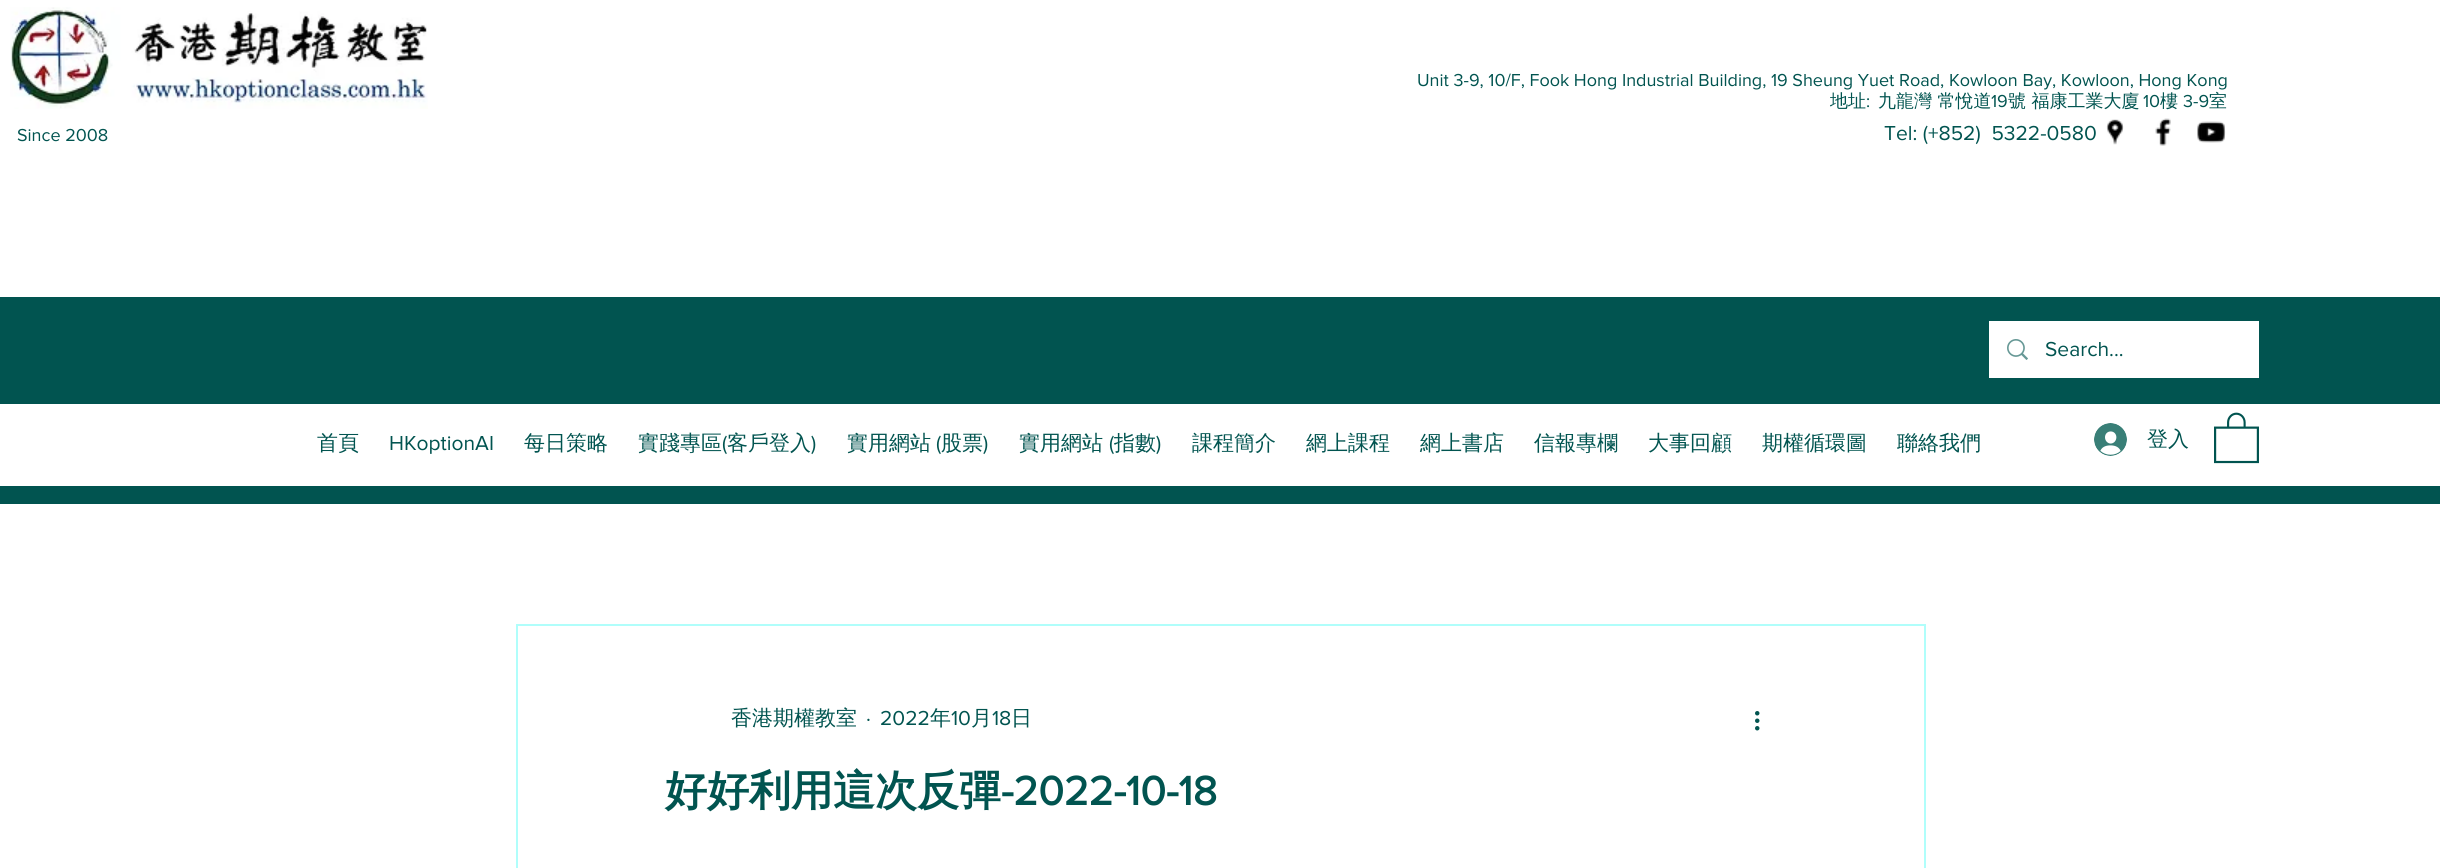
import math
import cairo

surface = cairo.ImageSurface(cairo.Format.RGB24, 2440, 868)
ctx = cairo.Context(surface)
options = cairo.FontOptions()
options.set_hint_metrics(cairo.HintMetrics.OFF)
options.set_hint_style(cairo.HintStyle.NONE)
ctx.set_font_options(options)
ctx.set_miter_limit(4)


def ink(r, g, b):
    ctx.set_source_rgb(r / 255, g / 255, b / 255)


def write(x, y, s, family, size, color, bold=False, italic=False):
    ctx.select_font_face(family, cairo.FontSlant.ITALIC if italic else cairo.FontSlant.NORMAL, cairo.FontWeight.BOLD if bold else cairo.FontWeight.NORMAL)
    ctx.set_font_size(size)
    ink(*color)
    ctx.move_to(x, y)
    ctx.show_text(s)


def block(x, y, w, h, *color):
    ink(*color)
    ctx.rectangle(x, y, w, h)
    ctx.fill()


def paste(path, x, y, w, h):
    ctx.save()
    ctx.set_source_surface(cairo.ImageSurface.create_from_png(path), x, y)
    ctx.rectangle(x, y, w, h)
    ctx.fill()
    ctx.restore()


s1 = dict(family="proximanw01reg", size=18, color=(1, 84, 80))
s2 = dict(family="WenQuanYi Zen Hei Medium", size=18, color=(1, 84, 80))
s3 = dict(family="proximanw01reg", size=21, color=(1, 84, 80))
s4 = dict(family="WenQuanYi Zen Hei Medium", size=21, color=(1, 84, 80))
s5 = dict(family="WenQuanYi Zen Hei", size=42, color=(1, 84, 80), bold=True)
s6 = dict(family="proximanw01reg", size=42, color=(1, 84, 80), bold=True)

ink(255, 255, 255)
ctx.paint()
paste("pic1.png", 10, 7, 418, 102)
write(1417, 86, "Unit 3-9, 10/F, Fook Hong Industrial Building, 19 Sheung Yuet Road, Kowloon Bay, Kowloon, Hong Kong", **s1)
write(1830, 107, "地址", **s2)
write(1866, 107, ":", **s1)
write(1878, 107, "九龍灣 常悅道", **s2)
write(1991, 107, "19", **s1)
write(2008, 107, "號 福康工業大廈", **s2)
write(2143, 107, "10", **s1)
write(2160, 107, "樓", **s2)
write(2183, 107, "3-9", **s1)
write(2209, 107, "室", **s2)
write(1884, 140, "Tel: (+852)  5322-0580", **s3)
paste("pic2.png", 2106, 119, 18, 26)
paste("pic3.png", 2155, 118, 16, 28)
paste("pic4.png", 2197, 121, 29, 22)
write(17, 141, "Since 2008", **s1)
block(0, 297, 2440, 207, 1, 84, 80)
block(1989, 321, 270, 57, 255, 255, 255)
paste("pic5.png", 2007, 339, 21, 21)
write(2045, 356, "Search...", **s3)
block(0, 404, 2440, 82, 255, 255, 255)
write(317, 450, "首頁", **s4)
write(389, 450, "HKoptionAI", **s3)
write(524, 450, "每日策略", **s4)
write(638, 450, "實踐專區", **s4)
write(722, 450, "(", **s3)
write(727, 450, "客戶登入", **s4)
write(811, 450, ")", **s3)
write(847, 450, "實用網站", **s4)
write(936, 450, "(", **s3)
write(941, 450, "股票", **s4)
write(983, 450, ")", **s3)
write(1019, 450, "實用網站", **s4)
write(1109, 450, "(", **s3)
write(1114, 450, "指數", **s4)
write(1156, 450, ")", **s3)
write(1192, 450, "課程簡介", **s4)
write(1306, 450, "網上課程", **s4)
write(1420, 450, "網上書店", **s4)
write(1534, 450, "信報專欄", **s4)
write(1648, 450, "大事回顧", **s4)
write(1762, 450, "期權循環圖", **s4)
write(1897, 450, "聯絡我們", **s4)
paste("pic6.png", 2094, 423, 33, 33)
write(2147, 446, "登入", **s4)
paste("pic7.png", 2214, 412, 45, 52)
ctx.rectangle(517, 625, 1408, 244)
ink(176, 254, 251)
ctx.stroke()
write(731, 725, "香港期權教室", **s4)
write(866, 725, "·", **s3)
write(880, 725, "2022", **s3)
write(930, 725, "年", **s4)
write(951, 725, "10", **s3)
write(971, 725, "月", **s4)
write(992, 725, "18", **s3)
write(1011, 725, "日", **s4)
paste("pic8.png", 1755, 711, 5, 20)
write(665, 805, "好好利用這次反彈", **s5)
write(1001, 805, "-2022-10-18", **s6)
surface.write_to_png("screenshot.png")
